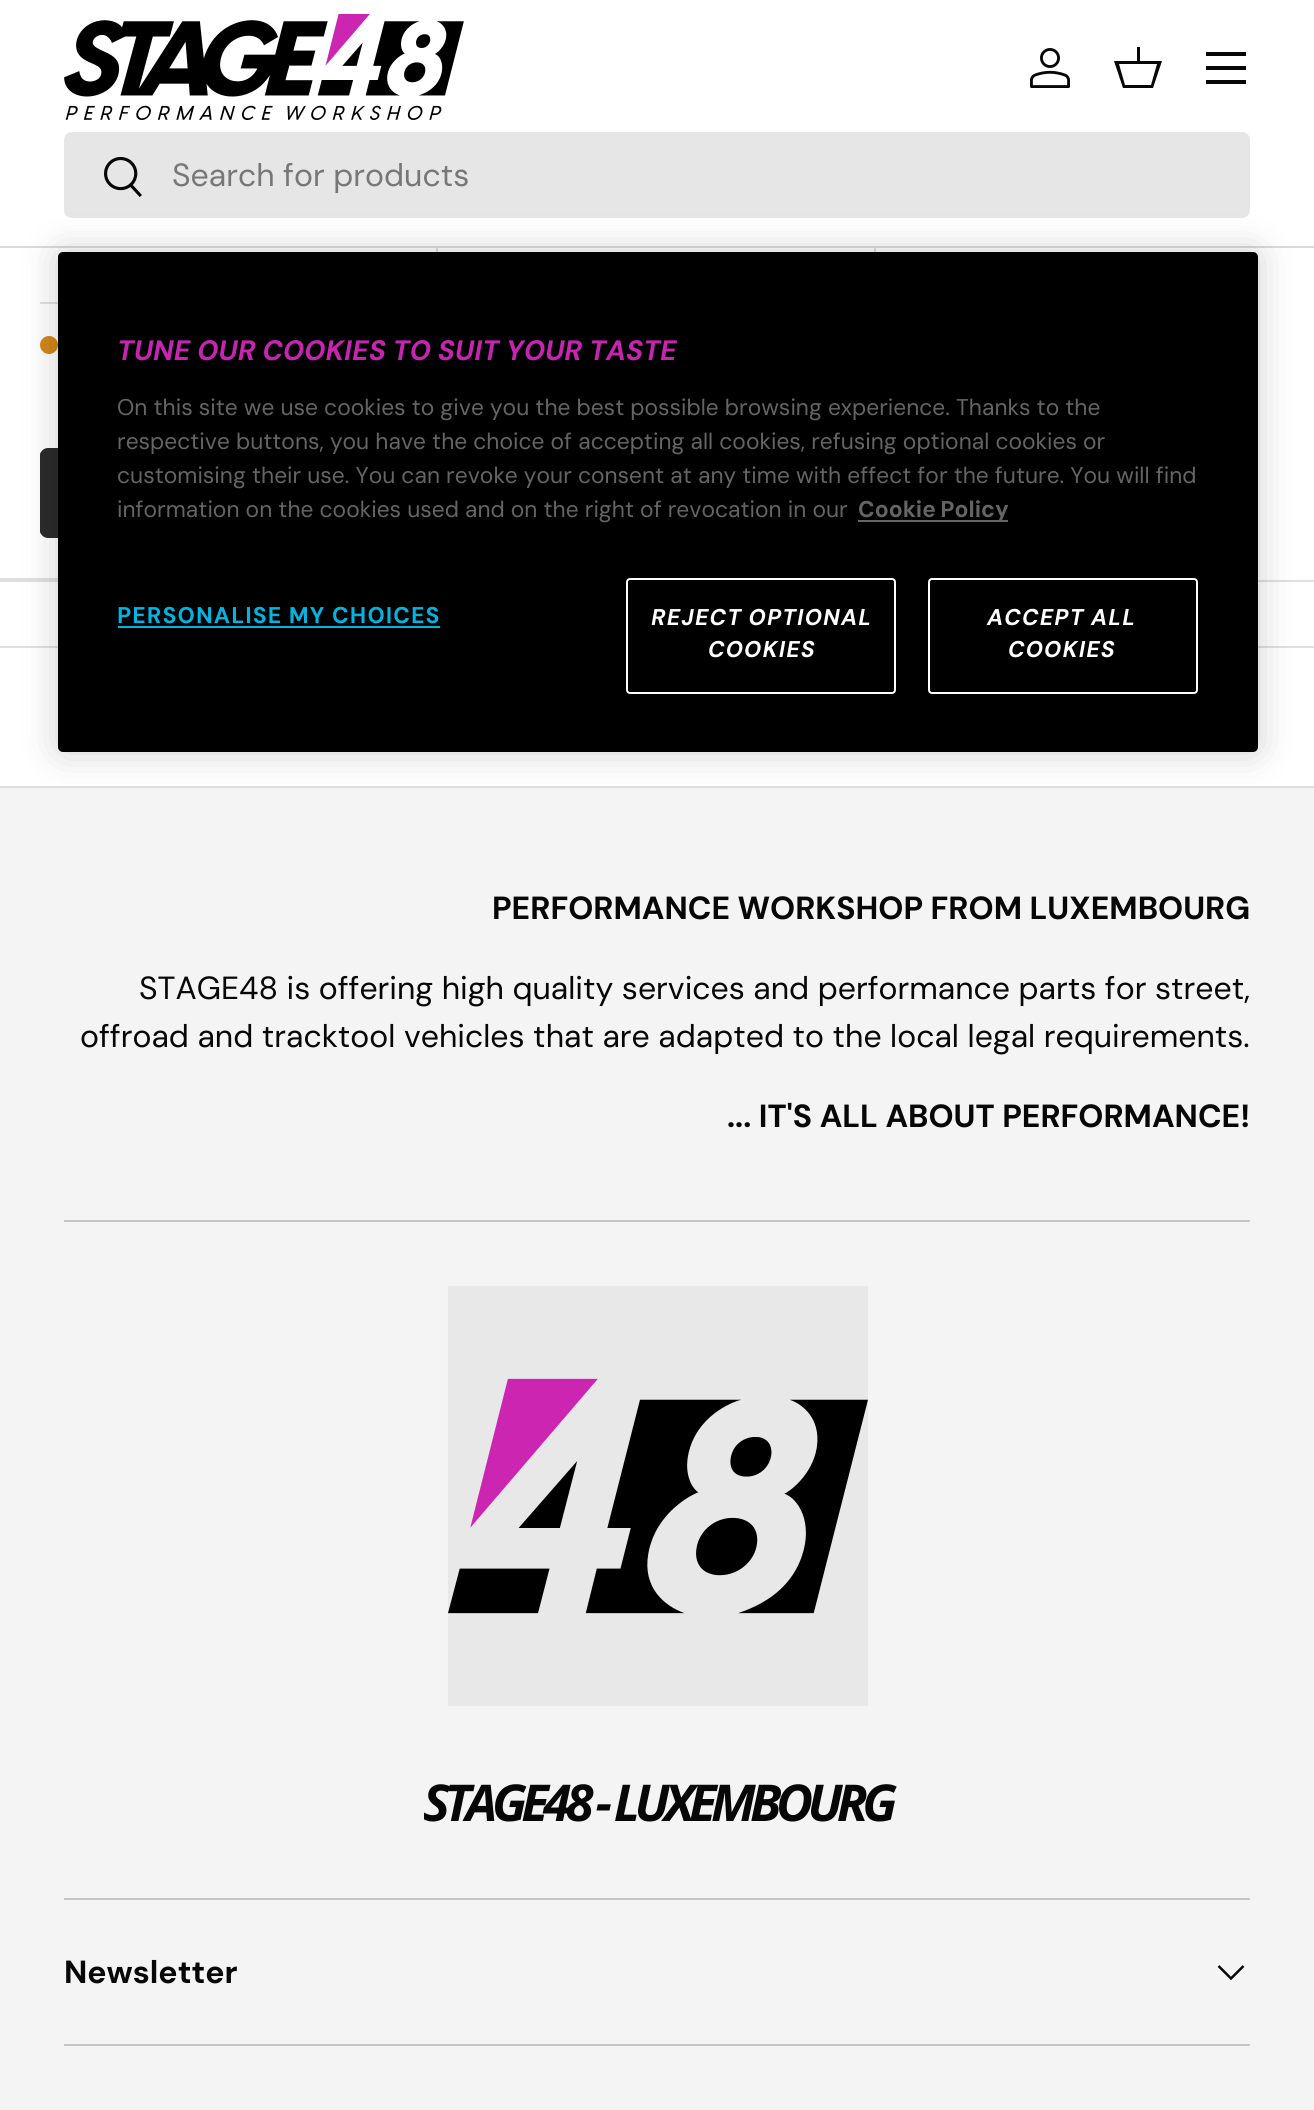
import math
import cairo

surface = cairo.ImageSurface(cairo.Format.RGB24, 1314, 2110)
ctx = cairo.Context(surface)
options = cairo.FontOptions()
options.set_hint_metrics(cairo.HintMetrics.OFF)
options.set_hint_style(cairo.HintStyle.NONE)
ctx.set_font_options(options)
ctx.set_miter_limit(4)


def ink(r, g, b):
    ctx.set_source_rgb(r / 255, g / 255, b / 255)


def write(x, y, s, family, size, color, bold=False, italic=False):
    ctx.select_font_face(family, cairo.FontSlant.ITALIC if italic else cairo.FontSlant.NORMAL, cairo.FontWeight.BOLD if bold else cairo.FontWeight.NORMAL)
    ctx.set_font_size(size)
    ink(*color)
    ctx.move_to(x, y)
    ctx.show_text(s)


def write_spaced(x, y, s, letter, word):
    ctx.move_to(x, y)
    for ch in s:
        ctx.show_text(ch)
        ctx.rel_move_to(letter + word * (ch == ' '), 0)


def block(x, y, w, h, *color):
    ink(*color)
    ctx.rectangle(x, y, w, h)
    ctx.fill()


def round_path(x, y, w, h, r):
    ctx.new_sub_path()
    for i, (u, v) in enumerate([(x + w - r, y + h - r), (x + r, y + h - r), (x + r, y + r), (x + w - r, y + r)]):
        ctx.arc(u, v, r, i * math.pi / 2, (i + 1) * math.pi / 2)
    ctx.close_path()


def blur_box(x, y, w, h, r, blur, alpha):
    ctx.push_group_with_content(cairo.Content.ALPHA)
    ctx.set_operator(cairo.Operator.SOURCE)
    for i in range(15, -16, -2):
        e = blur * i / 6
        if min(w, h) + 2 * e > 0:
            ctx.set_source_rgba(0, 0, 0, alpha * math.erfc((i - 1) / 8.5) / 2)
            round_path(x - e, y - e, w + 2 * e, h + 2 * e, max(0, min(r + e + blur * .6, min(w, h) / 2 + e)))
            ctx.fill()
    ctx.mask(ctx.pop_group())


def paste(path, x, y, w, h):
    ctx.save()
    ctx.set_source_surface(cairo.ImageSurface.create_from_png(path), x, y)
    ctx.rectangle(x, y, w, h)
    ctx.fill()
    ctx.restore()


s1 = dict(family="DM Sans", size=32, color=(119, 119, 119))
s2 = dict(family="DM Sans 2", size=22.75, color=(101, 101, 101))
s3 = dict(family="DM Sans", size=32, color=(7, 7, 7), bold=True)
s4 = dict(family="DM Sans", size=32, color=(7, 7, 7))

ink(255, 255, 255)
ctx.paint()
block(0, 580, 1314, 2, 223, 223, 223)
ctx.new_path()
ctx.move_to(438, -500)
ctx.line_to(438, 580)
ctx.line_to(436, 578)
ctx.line_to(436, -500)
ctx.close_path()
ctx.fill()
ctx.set_source_rgba(0.165, 0.169, 0.165, 0.15)
ctx.new_path()
ctx.move_to(438, 580)
ctx.line_to(0, 580)
ctx.line_to(0, 578)
ctx.line_to(436, 578)
ctx.close_path()
ctx.fill()
block(40, 302, 18, 2, 223, 223, 223)
ink(210, 134, 26)
ctx.arc(49, 345, 9, 0, 2 * math.pi)
ctx.fill()
ctx.save()
round_path(40, 448, 356, 90, 8)
ctx.clip()
gradient = cairo.LinearGradient(-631, 368, 371, 618)
gradient.add_color_stop_rgba(0.6, 0.322, 0.325, 0.322, 1)
gradient.add_color_stop_rgba(0.6, 0.165, 0.169, 0.165, 1)
gradient.add_color_stop_rgba(1, 0.165, 0.169, 0.165, 1)
ctx.set_source(gradient)
ctx.rectangle(40, 452, 18, 82)
ctx.fill()
ctx.restore()
round_path(42, 450, 352, 86, 6)
ink(42, 43, 42)
ctx.set_line_width(4)
ctx.stroke()
ink(223, 223, 223)
ctx.new_path()
ctx.move_to(876, -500)
ctx.line_to(876, 580)
ctx.line_to(874, 578)
ctx.line_to(874, -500)
ctx.close_path()
ctx.fill()
block(436, 0, 440, 246, 255, 255, 255)
block(0, 246, 1314, 2, 218, 218, 218)
paste("pic1.png", 64, 14, 400, 106)
paste("pic2.png", 1030, 48, 40, 40)
ink(7, 7, 7)
ctx.new_path()
ctx.move_to(1137, 61)
ctx.line_to(1137, 47)
ctx.line_to(1140, 47)
ctx.line_to(1140, 61)
ctx.line_to(1162, 61)
ctx.line_to(1153, 88)
ctx.line_to(1123, 88)
ctx.line_to(1114, 61)
ctx.close_path()
ctx.move_to(1119, 64)
ctx.line_to(1125, 85)
ctx.line_to(1151, 85)
ctx.line_to(1157, 64)
ctx.close_path()
ctx.fill()
block(1206, 52, 40, 4, 7, 7, 7)
block(1206, 80, 40, 4, 7, 7, 7)
block(1206, 66, 40, 4, 7, 7, 7)
ink(230, 230, 230)
round_path(64, 132, 1186, 86, 8)
ctx.fill()
paste("pic3.png", 104, 156, 38, 41)
write(172, 186, "Search for products", **s1)
block(0, 646, 1314, 2, 223, 223, 223)
block(0, 786, 1314, 2, 223, 223, 223)
block(0, 788, 1314, 1322, 244, 244, 244)
ink(0, 0, 0)
blur_box(58, 252, 1200, 500, 5, 18, 0.2)
ink(0, 0, 0)
round_path(58, 252, 1200, 500, 5)
ctx.fill()
ctx.select_font_face("DM Sans", cairo.FontSlant.ITALIC, cairo.FontWeight.BOLD)
ctx.set_font_size(28)
ink(199, 36, 177)
write_spaced(117, 360, "TUNE OUR COOKIES TO SUIT YOUR TASTE", 0, 0.25)
write(117, 415, "On this site we use cookies to give you the best possible browsing experience. Thanks to the", **s2)
write(117, 449, "respective buttons, you have the choice of accepting all cookies, refusing optional cookies or", **s2)
write(117, 483, "customising their use. You can revoke your consent at any time with effect for the future. You will find", **s2)
write(117, 517, "information on the cookies used and on the right of revocation in our", **s2)
block(858, 520, 150, 2, 101, 101, 101)
ctx.select_font_face("DM Sans 2", cairo.FontSlant.NORMAL, cairo.FontWeight.BOLD)
write_spaced(858, 517, "Cookie Policy", 0, -1)
ink(0, 181, 226)
write_spaced(117, 623, "PERSONALISE MY CHOICES", 1.1, 0)
block(118, 626, 322, 2, 0, 181, 226)
round_path(627, 579, 268, 114, 3)
ink(255, 255, 255)
ctx.set_line_width(2)
ctx.stroke()
ctx.select_font_face("DM Sans", cairo.FontSlant.ITALIC, cairo.FontWeight.BOLD)
write_spaced(651, 625, "REJECT OPTIONAL", 1.1, 0)
write_spaced(708, 657, "COOKIES", 1.1, 0)
round_path(929, 579, 268, 114, 3)
ctx.stroke()
write_spaced(987, 625, "ACCEPT ALL", 1.1, 0)
write_spaced(1008, 657, "COOKIES", 1.1, 0)
write(492, 919, "PERFORMANCE WORKSHOP FROM LUXEMBOURG", **s3)
write(139, 999, "STAGE48 is offering high quality services and performance parts for street,", **s4)
write(80, 1047, "offroad and tracktool vehicles that are adapted to the local legal requirements.", **s4)
write(727, 1127, "... IT'S ALL ABOUT PERFORMANCE!", **s3)
block(64, 1220, 1186, 2, 197, 197, 197)
block(448, 1286, 420, 420, 232, 232, 232)
paste("pic4.png", 448, 1378, 420, 236)
ctx.select_font_face("Open Sans", cairo.FontSlant.ITALIC, cairo.FontWeight.BOLD)
ctx.set_font_size(50.75)
ink(7, 7, 7)
write_spaced(423, 1821, "STAGE48 - LUXEMBOURG", -5.6, 0)
block(64, 1898, 1186, 2, 197, 197, 197)
block(64, 2044, 1186, 2, 197, 197, 197)
write(64, 1983, "Newsletter", **s3)
ctx.new_path()
ctx.move_to(1243.5, 1966)
ctx.line_to(1231, 1978.5)
ctx.line_to(1218.5, 1966)
ctx.set_line_width(2.5)
ctx.stroke()
surface.write_to_png("screenshot.png")
